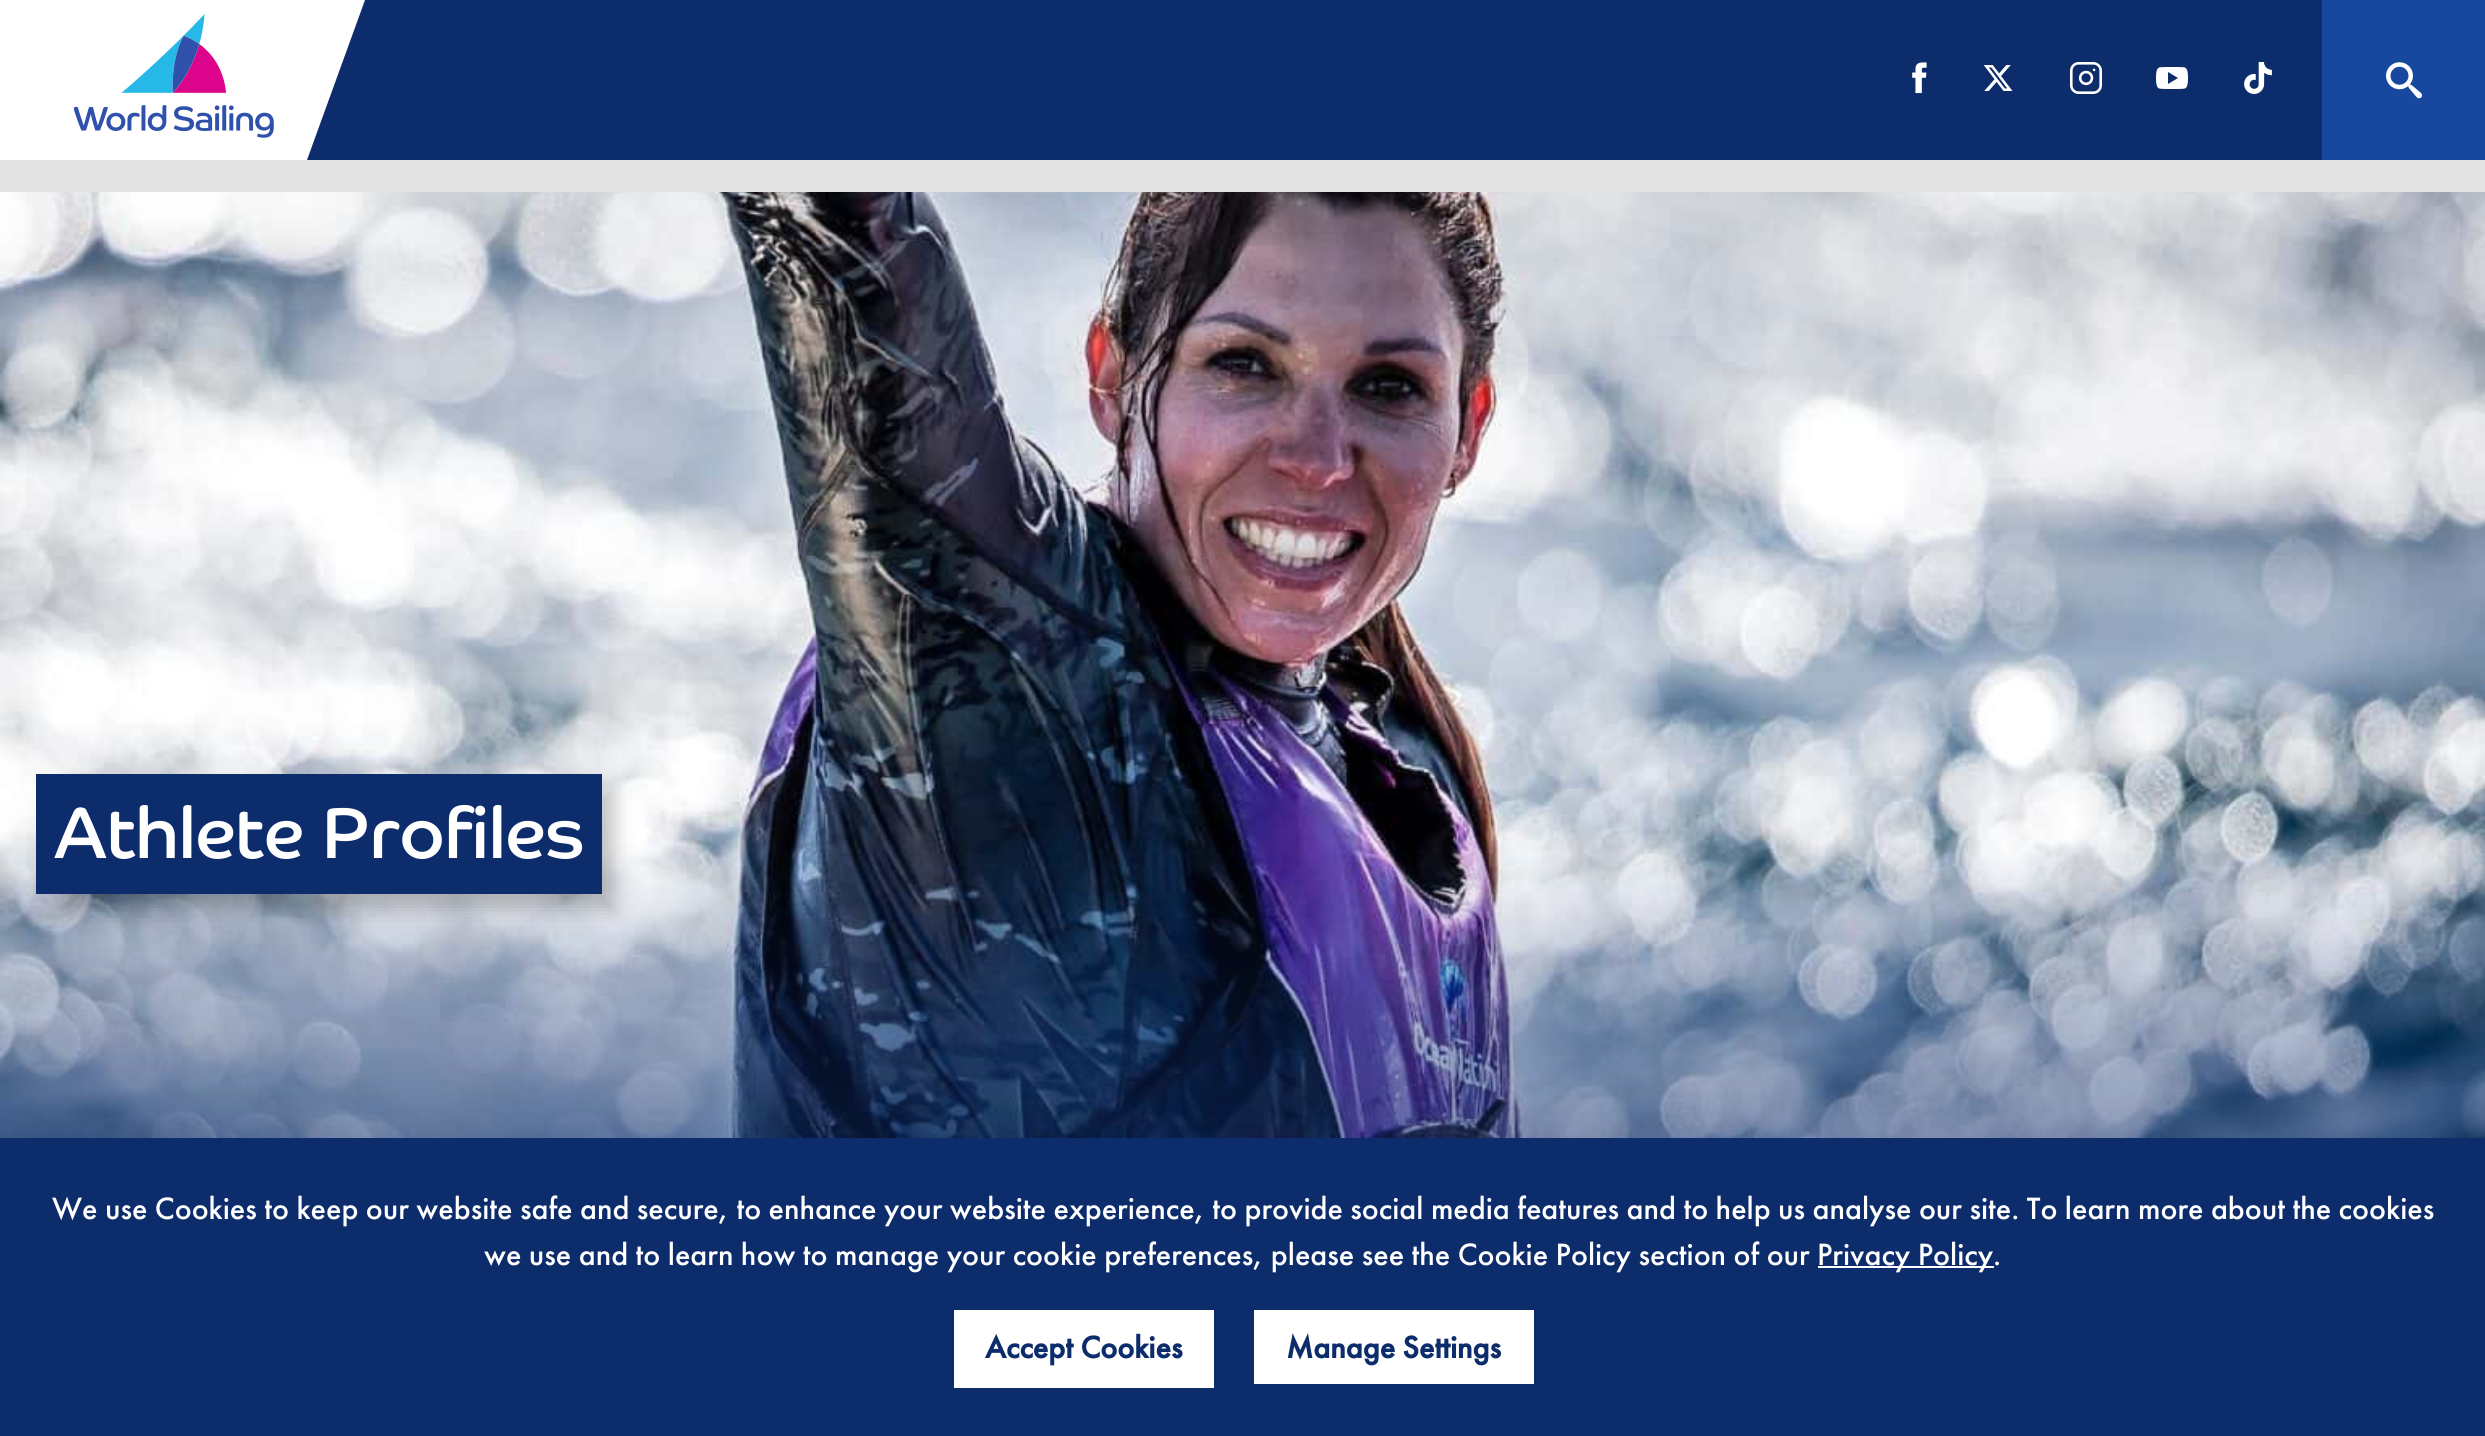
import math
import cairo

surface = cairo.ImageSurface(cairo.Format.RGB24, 2485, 1436)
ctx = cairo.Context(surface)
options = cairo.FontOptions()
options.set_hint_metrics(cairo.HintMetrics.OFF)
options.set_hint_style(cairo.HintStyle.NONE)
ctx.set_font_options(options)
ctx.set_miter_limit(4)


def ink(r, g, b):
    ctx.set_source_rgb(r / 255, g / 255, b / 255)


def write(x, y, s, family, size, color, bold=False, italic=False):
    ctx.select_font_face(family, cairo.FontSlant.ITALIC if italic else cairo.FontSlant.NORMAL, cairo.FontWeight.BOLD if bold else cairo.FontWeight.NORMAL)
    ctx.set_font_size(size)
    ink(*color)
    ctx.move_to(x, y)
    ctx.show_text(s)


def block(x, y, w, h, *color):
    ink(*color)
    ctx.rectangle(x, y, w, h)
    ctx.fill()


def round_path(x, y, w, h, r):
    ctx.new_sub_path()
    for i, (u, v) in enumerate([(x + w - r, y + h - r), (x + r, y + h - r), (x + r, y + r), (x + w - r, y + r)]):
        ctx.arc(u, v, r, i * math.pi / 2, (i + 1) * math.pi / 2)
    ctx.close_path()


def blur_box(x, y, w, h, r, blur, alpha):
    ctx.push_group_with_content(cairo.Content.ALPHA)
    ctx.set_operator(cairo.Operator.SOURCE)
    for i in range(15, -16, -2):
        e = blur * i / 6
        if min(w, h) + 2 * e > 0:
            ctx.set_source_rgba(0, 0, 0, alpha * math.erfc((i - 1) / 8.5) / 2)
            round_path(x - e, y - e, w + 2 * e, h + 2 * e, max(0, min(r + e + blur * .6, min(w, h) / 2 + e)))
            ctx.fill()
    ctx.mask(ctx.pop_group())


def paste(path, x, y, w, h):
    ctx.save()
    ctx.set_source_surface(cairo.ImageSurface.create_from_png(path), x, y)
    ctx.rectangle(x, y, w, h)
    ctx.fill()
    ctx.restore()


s1 = dict(family="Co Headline", size=72, color=(255, 255, 255))
s2 = dict(family="Futura PT Medium", size=32, color=(255, 255, 255))
s3 = dict(family="Futura PT", size=32, color=(13, 44, 108), bold=True)

ink(227, 227, 227)
ctx.paint()
block(307, 0, 2015, 160, 13, 44, 108)
ink(255, 255, 255)
ctx.new_path()
ctx.move_to(-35, 0)
ctx.line_to(365, 0)
ctx.line_to(307, 160)
ctx.line_to(-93, 160)
ctx.close_path()
ctx.fill()
paste("pic1.png", 74, 14, 200, 124)
paste("pic2.png", 1912, 62, 15, 32)
paste("pic3.png", 1983, 65, 30, 26)
paste("pic4.png", 2070, 62, 32, 32)
paste("pic5.png", 2156, 67, 32, 22)
paste("pic6.png", 2244, 62, 28, 32)
block(2322, 0, 163, 160, 23, 71, 158)
paste("pic7.png", 2386, 62, 36, 37)
paste("pic8.png", 0, 192, 2485, 946)
ink(0, 0, 0)
blur_box(64, 790, 268, 120, 0, 10, 0.25)
block(36, 774, 276, 120, 13, 44, 108)
write(54, 858, "Athlete", **s1)
ink(0, 0, 0)
blur_box(332, 790, 282, 120, 0, 10, 0.25)
block(312, 774, 290, 120, 13, 44, 108)
write(322, 858, "Profiles", **s1)
block(0, 1138, 2485, 298, 13, 44, 108)
write(52, 1219, "We use Cookies to keep our website safe and secure, to enhance your website experience, to provide social media features and to help us analyse our site. To learn more about the cookies", **s2)
write(484, 1265, "we use and to learn how to manage your cookie preferences, please see the Cookie Policy section of our", **s2)
block(1818, 1266, 176, 2, 255, 255, 255)
write(1817, 1265, "Privacy Policy.", **s2)
block(954, 1310, 260, 78, 255, 255, 255)
write(985, 1358, "Accept Cookies", **s3)
block(1254, 1310, 280, 74, 255, 255, 255)
write(1286, 1358, "Manage Settings", **s3)
surface.write_to_png("screenshot.png")
